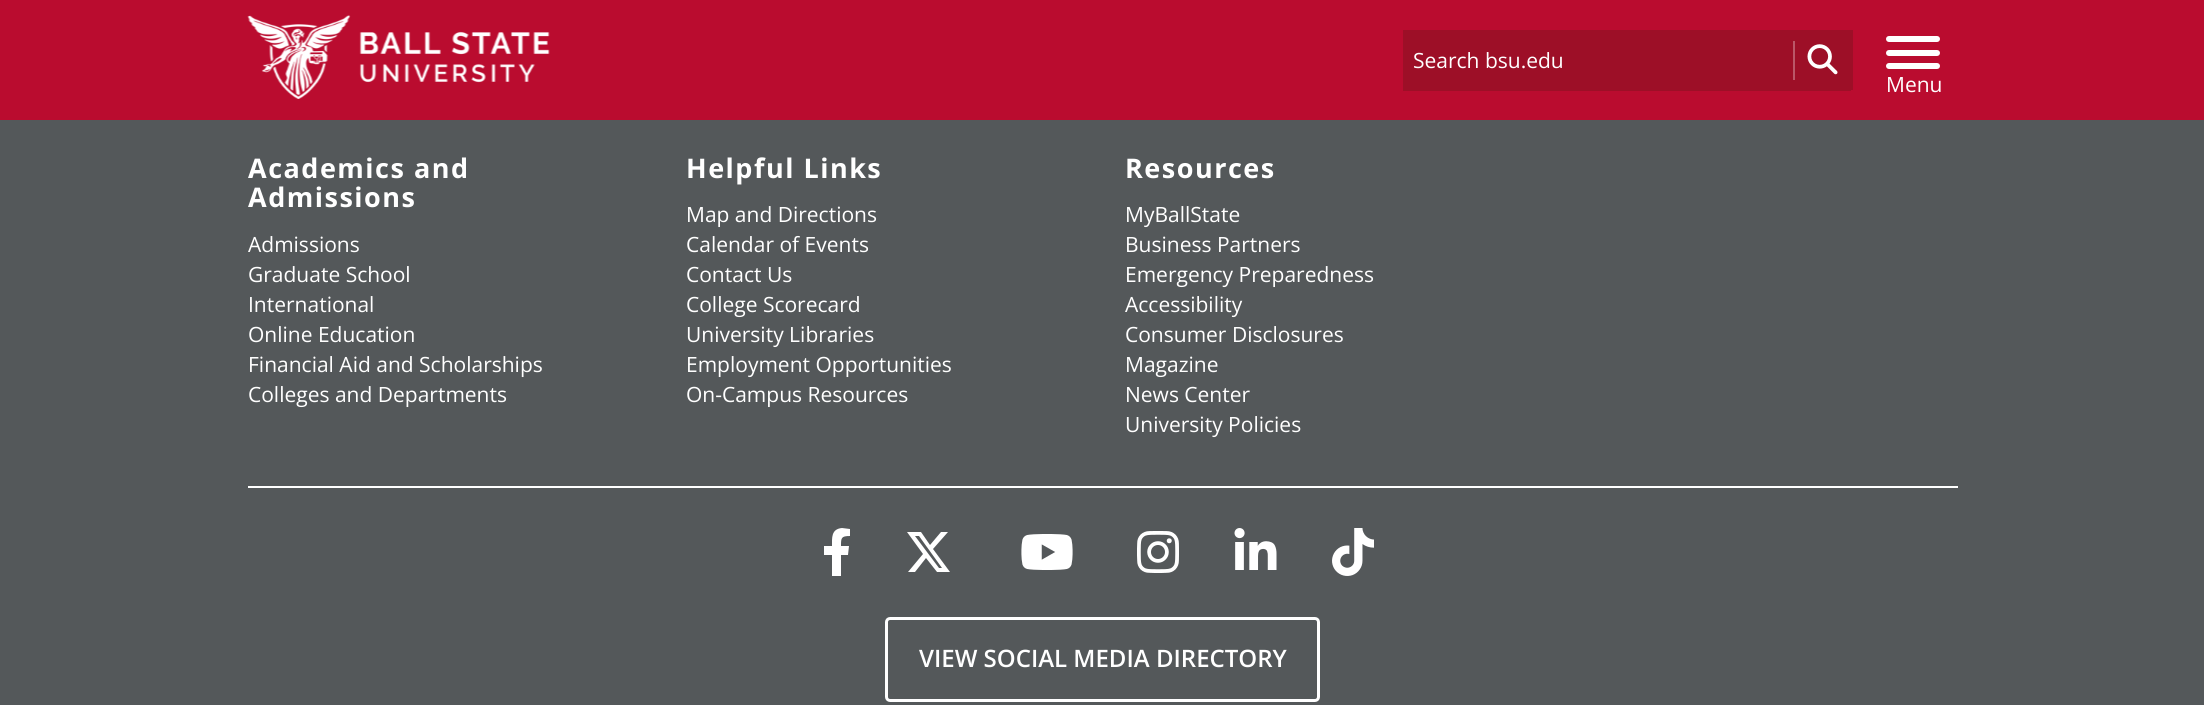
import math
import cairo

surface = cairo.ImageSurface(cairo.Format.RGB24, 2204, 705)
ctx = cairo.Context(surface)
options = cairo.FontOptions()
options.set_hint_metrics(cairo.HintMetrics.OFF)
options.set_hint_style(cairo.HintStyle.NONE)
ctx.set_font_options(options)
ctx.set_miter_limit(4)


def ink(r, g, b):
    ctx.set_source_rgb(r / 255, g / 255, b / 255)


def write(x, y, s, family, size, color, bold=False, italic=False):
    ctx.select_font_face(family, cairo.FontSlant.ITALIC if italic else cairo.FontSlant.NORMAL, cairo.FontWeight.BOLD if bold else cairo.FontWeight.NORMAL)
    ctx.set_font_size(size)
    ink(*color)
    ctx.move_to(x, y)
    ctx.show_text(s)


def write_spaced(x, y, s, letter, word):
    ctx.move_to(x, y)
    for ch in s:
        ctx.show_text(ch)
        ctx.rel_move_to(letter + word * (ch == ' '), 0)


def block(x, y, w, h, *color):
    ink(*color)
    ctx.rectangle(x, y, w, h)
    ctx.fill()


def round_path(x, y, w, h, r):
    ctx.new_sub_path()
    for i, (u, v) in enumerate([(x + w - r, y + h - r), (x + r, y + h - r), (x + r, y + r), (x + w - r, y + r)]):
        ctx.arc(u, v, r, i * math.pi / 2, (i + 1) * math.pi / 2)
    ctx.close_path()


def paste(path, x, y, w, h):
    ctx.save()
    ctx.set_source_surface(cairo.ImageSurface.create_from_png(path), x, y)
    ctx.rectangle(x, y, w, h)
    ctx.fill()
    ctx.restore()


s1 = dict(family="Open Sans", size=21, color=(255, 255, 255))
s2 = dict(family="Open Sans SemiBold", size=24, color=(255, 255, 255))

ink(84, 88, 90)
ctx.paint()
block(0, 0, 2204, 120, 186, 12, 47)
paste("pic1.png", 247, 15, 303, 84)
block(1403, 30, 390, 61, 157, 15, 39)
write(1413, 68, "Search bsu.edu", **s1)
block(1795, 30, 58, 60, 157, 15, 39)
block(1793, 30, 2, 11, 157, 15, 39)
block(1793, 89, 58, 2, 157, 15, 39)
block(1793, 41, 2, 39, 187, 87, 104)
paste("pic2.png", 1807, 44, 31, 31)
block(1793, 80, 2, 10, 157, 15, 39)
ink(255, 255, 255)
round_path(1886, 36, 54, 6, 3)
ctx.fill()
round_path(1886, 50, 54, 6, 3)
ctx.fill()
round_path(1886, 63, 54, 6, 3)
ctx.fill()
write(1886, 92, "Menu", **s1)
ctx.select_font_face("Open Sans", cairo.FontSlant.NORMAL, cairo.FontWeight.BOLD)
ctx.set_font_size(27)
write_spaced(248, 178, "Academics and", 1.5, 0)
write_spaced(248, 207, "Admissions", 1.5, 0)
write(248, 252, "Admissions", **s1)
write(248, 282, "Graduate School", **s1)
write(248, 312, "International", **s1)
write(248, 342, "Online Education", **s1)
write(248, 372, "Financial Aid and Scholarships", **s1)
write(248, 402, "Colleges and Departments", **s1)
ctx.select_font_face("Open Sans", cairo.FontSlant.NORMAL, cairo.FontWeight.BOLD)
ctx.set_font_size(27)
write_spaced(686, 178, "Helpful Links", 1.5, 0)
write(686, 222, "Map and Directions", **s1)
write(686, 252, "Calendar of Events", **s1)
write(686, 282, "Contact Us", **s1)
write(686, 312, "College Scorecard", **s1)
write(686, 342, "University Libraries", **s1)
write(686, 372, "Employment Opportunities", **s1)
write(686, 402, "On-Campus Resources", **s1)
ctx.select_font_face("Open Sans", cairo.FontSlant.NORMAL, cairo.FontWeight.BOLD)
ctx.set_font_size(27)
write_spaced(1125, 178, "Resources", 1.5, 0)
write(1125, 222, "MyBallState", **s1)
write(1125, 252, "Business Partners", **s1)
write(1125, 282, "Emergency Preparedness", **s1)
write(1125, 312, "Accessibility", **s1)
write(1125, 342, "Consumer Disclosures", **s1)
write(1125, 372, "Magazine", **s1)
write(1125, 402, "News Center", **s1)
write(1125, 432, "University Policies", **s1)
block(248, 486, 1710, 2, 255, 255, 255)
ctx.new_path()
ctx.move_to(848, 555)
ctx.line_to(849, 546)
ctx.line_to(841, 546)
ctx.curve_to(841, 538, 841, 536, 850, 536)
ctx.line_to(850, 529)
ctx.line_to(842, 528)
ctx.curve_to(831, 529, 832, 538, 832, 546)
ctx.line_to(824, 546)
ctx.line_to(824, 555)
ctx.line_to(832, 555)
ctx.line_to(832, 576)
ctx.line_to(841, 576)
ctx.line_to(841, 555)
ctx.close_path()
ctx.fill()
ctx.new_path()
ctx.move_to(941, 532)
ctx.line_to(948, 532)
ctx.line_to(933, 549)
ctx.line_to(950, 572)
ctx.line_to(937, 572)
ctx.line_to(926, 558)
ctx.line_to(915, 572)
ctx.line_to(908, 572)
ctx.line_to(923, 554)
ctx.line_to(907, 532)
ctx.line_to(921, 532)
ctx.line_to(930, 545)
ctx.close_path()
ctx.move_to(939, 568)
ctx.line_to(942, 568)
ctx.line_to(919, 536)
ctx.line_to(915, 536)
ctx.close_path()
ctx.fill()
paste("pic3.png", 1021, 534, 52, 36)
paste("pic4.png", 1137, 531, 42, 42)
paste("pic5.png", 1234, 528, 43, 42)
paste("pic6.png", 1332, 528, 42, 48)
round_path(886.5, 618.5, 432, 82, 3.5)
ctx.set_line_width(3)
ctx.stroke()
write(919, 667, "VIEW SOCIAL MEDIA DIRECTORY", **s2)
surface.write_to_png("screenshot.png")
